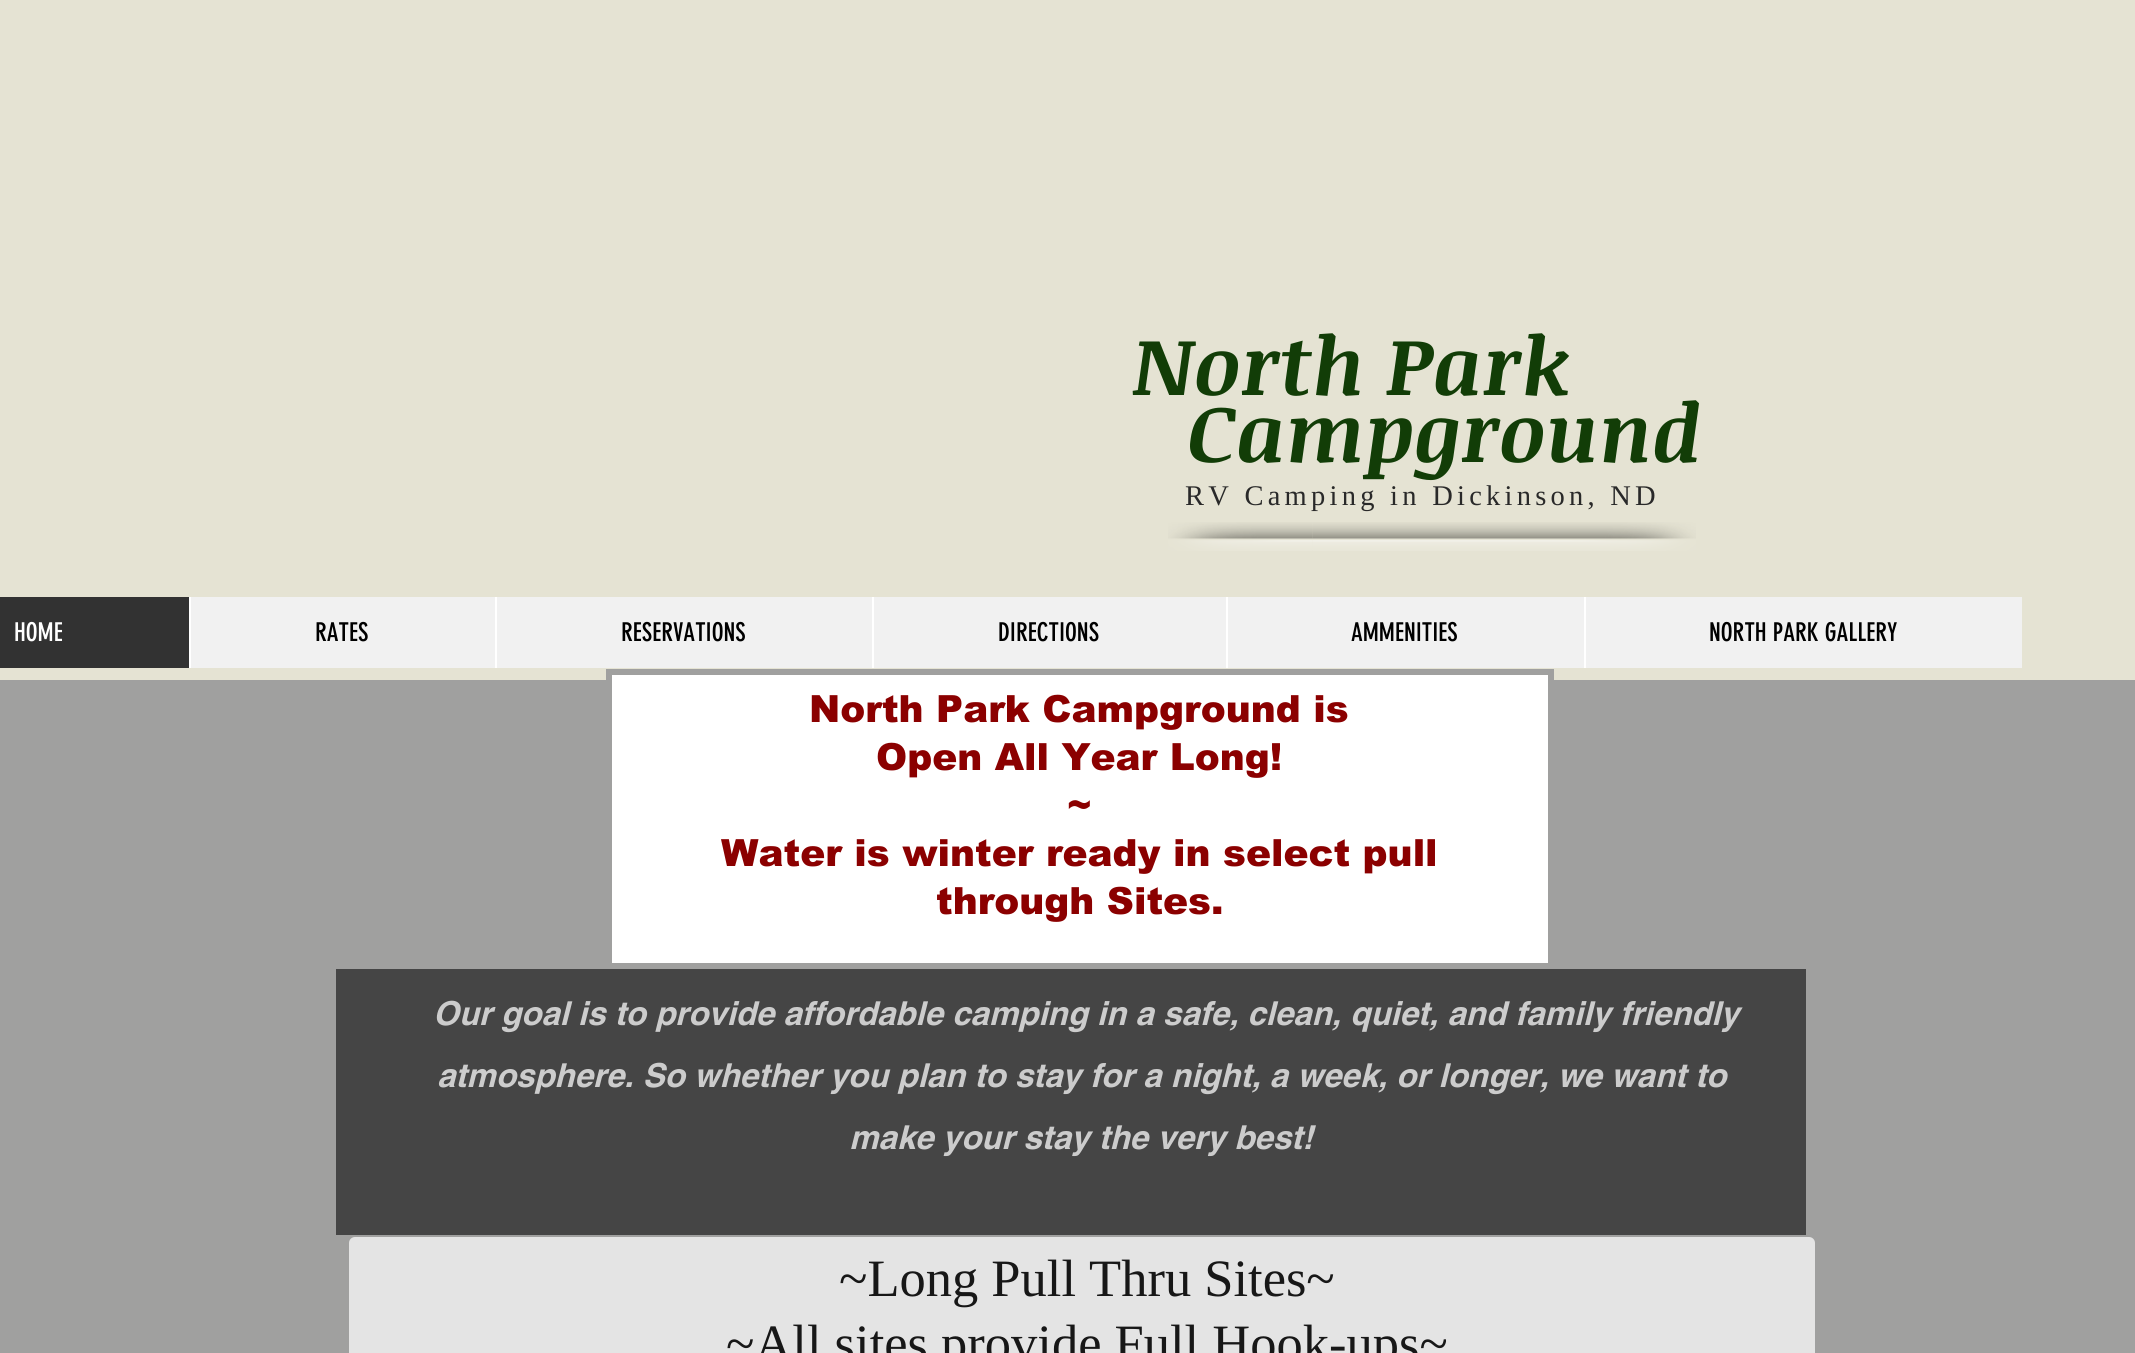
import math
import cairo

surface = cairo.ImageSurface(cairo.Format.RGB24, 2135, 1353)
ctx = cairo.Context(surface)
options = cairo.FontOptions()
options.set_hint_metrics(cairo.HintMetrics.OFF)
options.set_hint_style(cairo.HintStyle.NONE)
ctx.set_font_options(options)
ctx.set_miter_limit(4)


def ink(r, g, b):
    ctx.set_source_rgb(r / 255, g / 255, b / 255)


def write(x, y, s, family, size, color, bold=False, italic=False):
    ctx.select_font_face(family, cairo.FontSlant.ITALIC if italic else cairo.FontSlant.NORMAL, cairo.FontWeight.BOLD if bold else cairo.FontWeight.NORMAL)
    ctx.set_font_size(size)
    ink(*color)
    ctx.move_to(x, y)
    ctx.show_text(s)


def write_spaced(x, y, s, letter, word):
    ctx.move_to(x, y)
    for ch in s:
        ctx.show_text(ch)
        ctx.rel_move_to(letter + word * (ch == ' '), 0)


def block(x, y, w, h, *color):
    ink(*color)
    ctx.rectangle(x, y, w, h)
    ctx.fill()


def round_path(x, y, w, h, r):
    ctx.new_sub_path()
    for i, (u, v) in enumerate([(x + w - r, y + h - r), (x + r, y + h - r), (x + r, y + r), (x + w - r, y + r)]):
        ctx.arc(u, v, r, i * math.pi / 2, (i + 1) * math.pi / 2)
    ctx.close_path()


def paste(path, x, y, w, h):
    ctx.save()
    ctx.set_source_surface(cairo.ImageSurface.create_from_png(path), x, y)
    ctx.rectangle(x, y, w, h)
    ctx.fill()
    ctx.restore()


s1 = dict(family="Noticia Text", size=81, color=(18, 61, 7), bold=True, italic=True)
s2 = dict(family="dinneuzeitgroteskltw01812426", size=25.5, color=(255, 255, 255))
s3 = dict(family="dinneuzeitgroteskltw01812426", size=25.5, color=(0, 0, 0))
s4 = dict(family="arial Black", size=37.5, color=(139, 0, 0))
s5 = dict(family="helvetica", size=33, color=(204, 204, 204), bold=True, italic=True)
s6 = dict(family="Liberation Serif", size=52.5, color=(23, 23, 23))

ink(160, 160, 159)
ctx.paint()
block(0, 0, 2135, 680, 229, 227, 211)
write(1133, 395, "North Park", **s1)
write(1188, 462, "Campground", **s1)
ctx.select_font_face("Liberation Serif")
ctx.set_font_size(28.5)
ink(41, 41, 41)
write_spaced(1185, 505, "RV Camping in Dickinson, ND", 4.25, 0)
paste("pic2.png", 1312, 522, 239, 29)
paste("pic1.png", 1168, 522, 145, 29)
paste("pic3.png", 1551, 522, 145, 29)
block(191, 597, 1831, 71, 241, 241, 241)
block(0, 597, 189, 71, 50, 50, 50)
write(14, 641, "HOME", **s2)
block(189, 597, 2, 71, 255, 255, 255)
write(315, 641, "RATES", **s3)
block(495, 597, 2, 71, 255, 255, 255)
write(621, 641, "RESERVATIONS", **s3)
block(872, 597, 2, 71, 255, 255, 255)
write(998, 641, "DIRECTIONS", **s3)
block(1226, 597, 2, 71, 255, 255, 255)
write(1351, 641, "AMMENITIES", **s3)
block(1584, 597, 2, 71, 255, 255, 255)
write(1709, 641, "NORTH PARK GALLERY", **s3)
ink(255, 255, 255)
ctx.rectangle(609, 672, 942, 294)
ctx.fill_preserve()
ink(160, 160, 159)
ctx.set_line_width(6)
ctx.stroke()
write(809, 722, "North Park Campground is", **s4)
write(876, 770, "Open All Year Long!", **s4)
write(1067, 818, "~", **s4)
write(721, 866, "Water is winter ready in select pull", **s4)
write(936, 914, "through Sites.", **s4)
block(336, 969, 1470, 266, 69, 69, 69)
write(433, 1025, "Our goal is to provide affordable camping in a safe, clean, quiet, and family friendly", **s5)
write(437, 1087, "atmosphere. So whether you plan to stay for a night, a week, or longer, we want to", **s5)
write(849, 1149, "make your stay the very best!", **s5)
ink(228, 228, 228)
round_path(348, 1236, 1468, 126, 7)
ctx.fill_preserve()
ink(160, 160, 159)
ctx.set_line_width(2)
ctx.stroke()
write(839, 1296, "~Long Pull Thru Sites~", **s6)
write(726, 1361, "~All sites provide Full Hook-ups~", **s6)
surface.write_to_png("screenshot.png")
